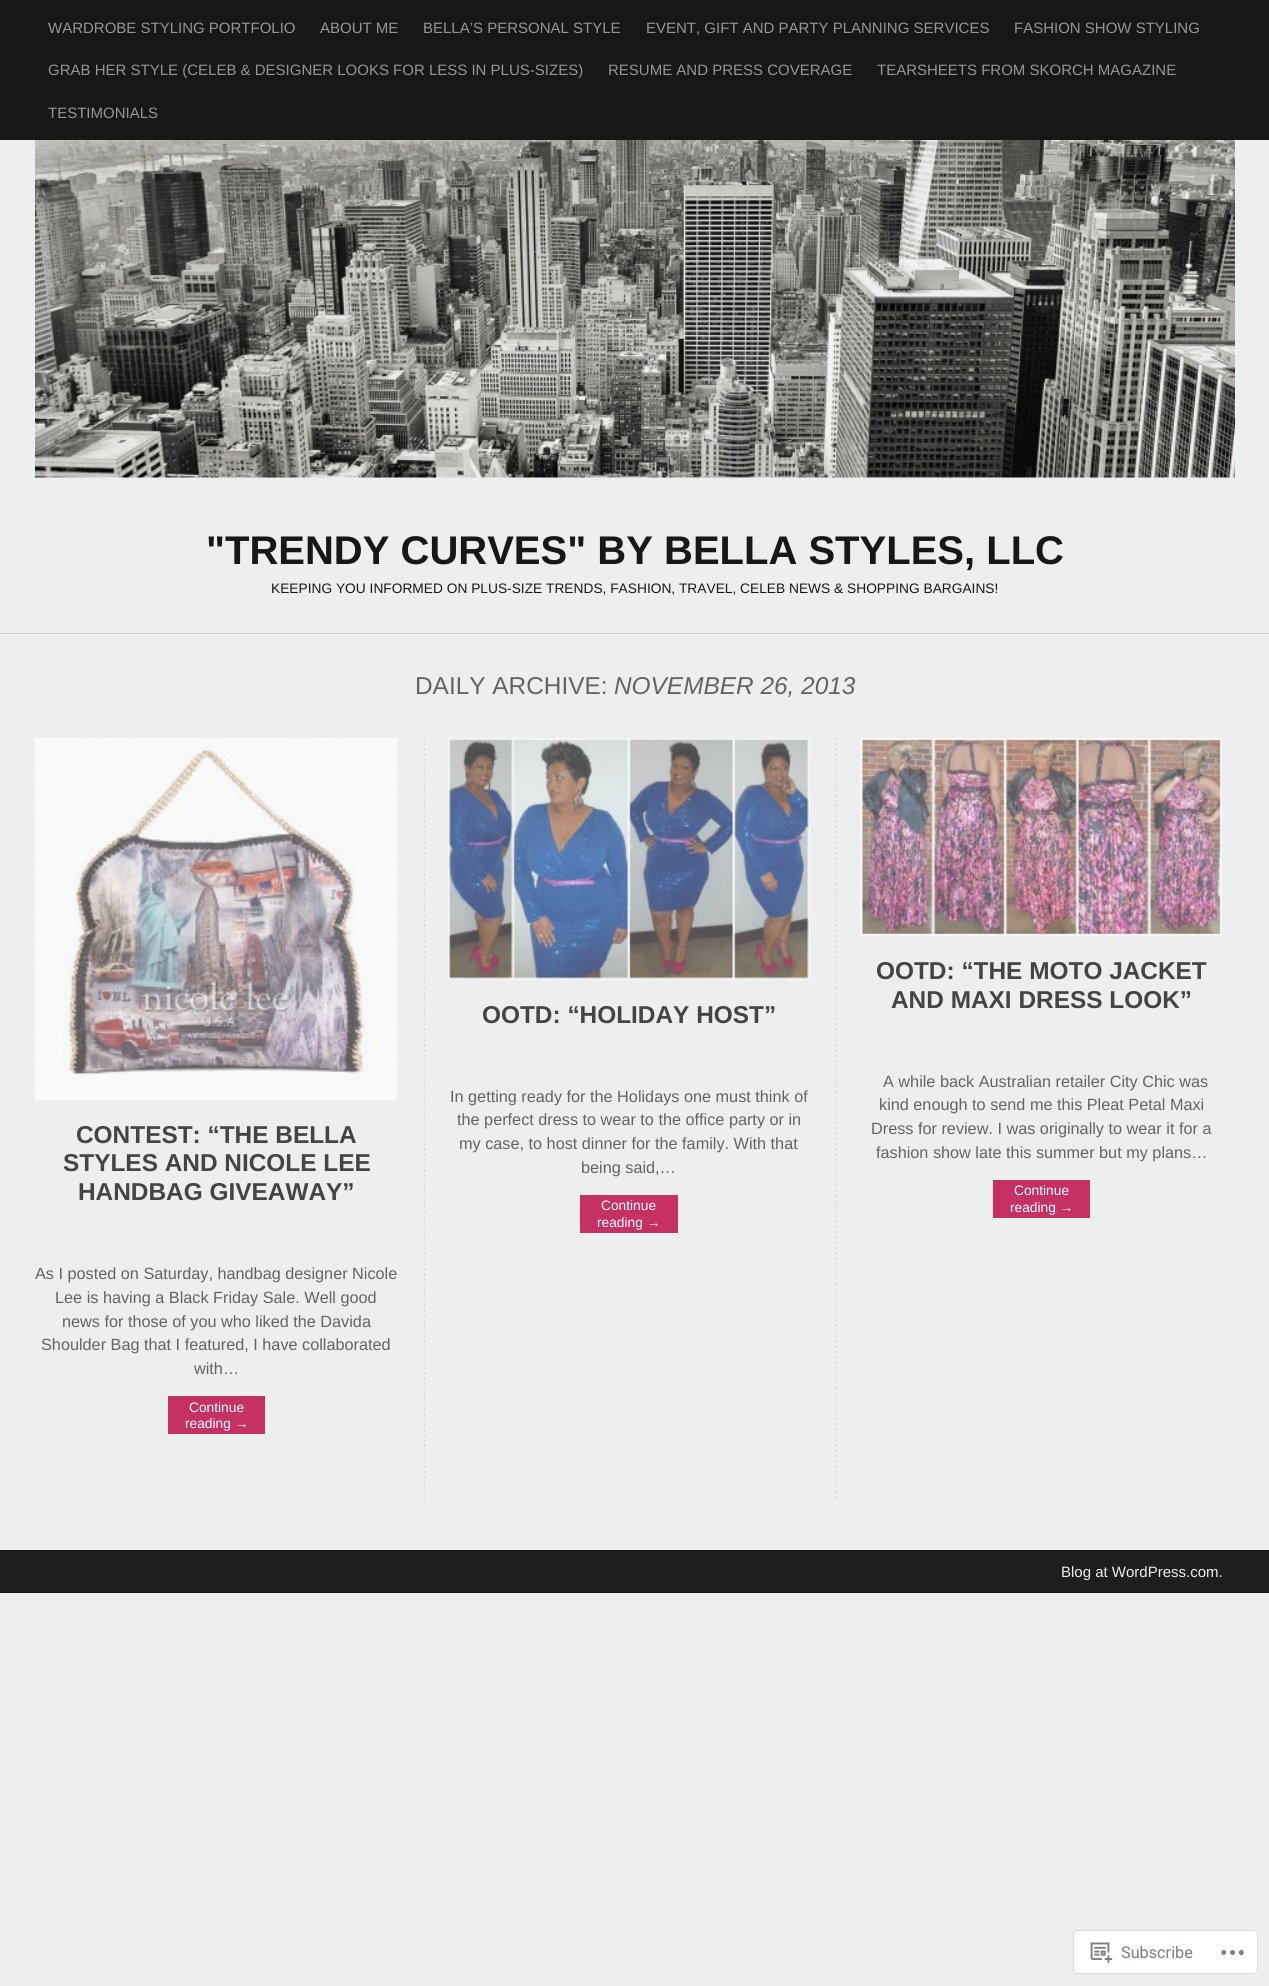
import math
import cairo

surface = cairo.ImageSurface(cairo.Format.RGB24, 1269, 1986)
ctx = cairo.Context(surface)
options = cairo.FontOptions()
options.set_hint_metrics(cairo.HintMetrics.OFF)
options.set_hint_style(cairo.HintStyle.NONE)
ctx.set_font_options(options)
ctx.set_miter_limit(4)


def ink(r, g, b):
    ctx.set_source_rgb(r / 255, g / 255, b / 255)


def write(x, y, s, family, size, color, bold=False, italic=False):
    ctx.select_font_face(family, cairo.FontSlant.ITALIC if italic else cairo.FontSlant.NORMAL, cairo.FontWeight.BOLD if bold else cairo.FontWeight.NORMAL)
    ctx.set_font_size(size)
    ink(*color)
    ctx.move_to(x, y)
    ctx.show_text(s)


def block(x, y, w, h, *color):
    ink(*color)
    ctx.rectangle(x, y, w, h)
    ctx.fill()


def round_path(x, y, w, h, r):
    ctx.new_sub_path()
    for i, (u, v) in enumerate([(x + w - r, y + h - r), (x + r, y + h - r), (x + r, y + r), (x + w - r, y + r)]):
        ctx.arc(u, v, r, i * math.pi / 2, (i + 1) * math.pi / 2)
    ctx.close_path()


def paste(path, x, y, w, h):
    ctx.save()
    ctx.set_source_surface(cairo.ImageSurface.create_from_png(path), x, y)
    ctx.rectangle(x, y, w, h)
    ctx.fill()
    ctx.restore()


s1 = dict(family="Liberation Sans", size=15, color=(150, 150, 150))
s2 = dict(family="Liberation Sans", size=40, color=(23, 23, 23), bold=True)
s3 = dict(family="Liberation Sans", size=13.75, color=(23, 23, 23))
s4 = dict(family="Liberation Sans", size=24.4, color=(99, 99, 99))
s5 = dict(family="Liberation Sans", size=24.4, color=(99, 99, 99), italic=True)
s6 = dict(family="Liberation Sans", size=24.4, color=(68, 68, 68), bold=True)
s7 = dict(family="Liberation Sans", size=16.25, color=(99, 99, 99))
s8 = dict(family="Liberation Sans", size=13.75, color=(255, 255, 255))
s9 = dict(family="Liberation Sans", size=15, color=(237, 238, 240))
s10 = dict(family="Roboto", size=16.25, color=(122, 126, 132))

ink(237, 238, 240)
ctx.paint()
block(0, 0, 1269, 140, 23, 23, 23)
write(48, 33, "WARDROBE STYLING PORTFOLIO", **s1)
write(320, 33, "ABOUT ME", **s1)
write(423, 33, "BELLA’S PERSONAL STYLE", **s1)
write(646, 33, "EVENT, GIFT AND PARTY PLANNING SERVICES", **s1)
write(1014, 33, "FASHION SHOW STYLING", **s1)
write(48, 75, "GRAB HER STYLE (CELEB & DESIGNER LOOKS FOR LESS IN PLUS-SIZES)", **s1)
write(608, 75, "RESUME AND PRESS COVERAGE", **s1)
write(877, 75, "TEARSHEETS FROM SKORCH MAGAZINE", **s1)
write(48, 118, "TESTIMONIALS", **s1)
block(0, 633, 1269, 1, 204, 209, 214)
paste("pic1.png", 35, 140, 1200, 338)
write(206, 564, "\"TRENDY CURVES\" BY BELLA STYLES, LLC", **s2)
write(271, 593, "KEEPING YOU INFORMED ON PLUS-SIZE TRENDS, FASHION, TRAVEL, CELEB NEWS & SHOPPING BARGAINS!", **s3)
write(415, 694, "DAILY ARCHIVE:", **s4)
write(614, 694, "NOVEMBER 26, 2013", **s5)
paste("pic2.png", 423, 737, 414, 762)
paste("pic3.png", 35, 738, 362, 362)
write(76, 1143, "CONTEST: “THE BELLA", **s6)
write(63, 1171, "STYLES AND NICOLE LEE", **s6)
write(78, 1200, "HANDBAG GIVEAWAY”", **s6)
write(35, 1279, "As I posted on Saturday, handbag designer Nicole", **s7)
write(55, 1303, "Lee is having a Black Friday Sale. Well good", **s7)
write(62, 1327, "news for those of you who liked the Davida", **s7)
write(41, 1350, "Shoulder Bag that I featured, I have collaborated", **s7)
write(194, 1374, "with…", **s7)
block(168, 1396, 97, 38, 197, 49, 99)
write(189, 1412, "Continue", **s8)
write(185, 1428, "reading →", **s8)
paste("pic4.png", 448, 738, 362, 242)
write(482, 1023, "OOTD: “HOLIDAY HOST”", **s6)
write(450, 1102, "In getting ready for the Holidays one must think of", **s7)
write(457, 1125, "the perfect dress to wear to the office party or in", **s7)
write(459, 1149, "my case, to host dinner for the family. With that", **s7)
write(581, 1173, "being said,…", **s7)
block(580, 1195, 98, 38, 197, 49, 99)
write(601, 1210, "Continue", **s8)
write(597, 1227, "reading →", **s8)
paste("pic5.png", 860, 738, 362, 198)
write(876, 979, "OOTD: “THE MOTO JACKET", **s6)
write(891, 1008, "AND MAXI DRESS LOOK”", **s6)
write(883, 1087, "A while back Australian retailer City Chic was", **s7)
write(879, 1110, "kind enough to send me this Pleat Petal Maxi", **s7)
write(871, 1134, "Dress for review. I was originally to wear it for a", **s7)
write(876, 1158, "fashion show late this summer but my plans…", **s7)
block(993, 1180, 97, 38, 197, 49, 99)
write(1014, 1195, "Continue", **s8)
write(1010, 1212, "reading →", **s8)
block(0, 1592, 1269, 1, 23, 23, 23)
block(0, 1550, 1269, 42, 30, 30, 30)
write(1061, 1577, "Blog at WordPress.com.", **s9)
ink(255, 255, 255)
round_path(1073.5, 1930.5, 184, 43, 3.5)
ctx.fill_preserve()
ink(220, 220, 222)
ctx.set_line_width(1)
ctx.stroke()
paste("pic6.png", 1090, 1942, 23, 21)
write(1121, 1958, "Subscribe", **s10)
paste("pic7.png", 1221, 1950, 23, 5)
surface.write_to_png("screenshot.png")
